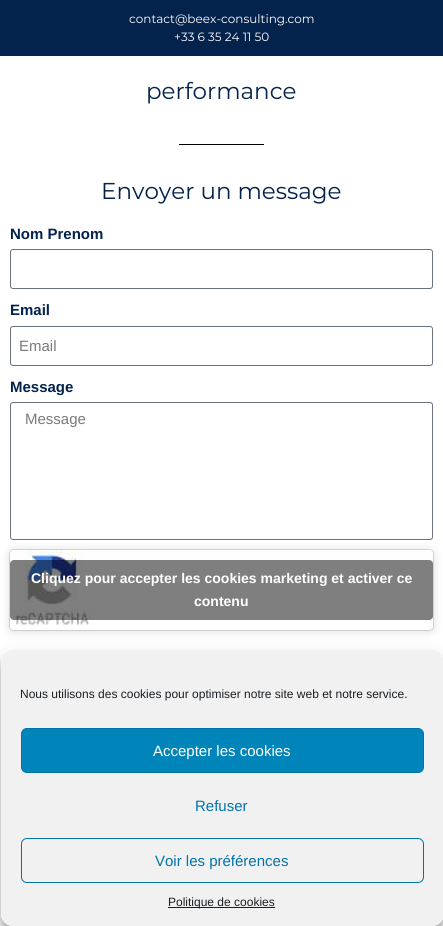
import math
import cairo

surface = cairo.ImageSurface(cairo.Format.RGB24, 443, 926)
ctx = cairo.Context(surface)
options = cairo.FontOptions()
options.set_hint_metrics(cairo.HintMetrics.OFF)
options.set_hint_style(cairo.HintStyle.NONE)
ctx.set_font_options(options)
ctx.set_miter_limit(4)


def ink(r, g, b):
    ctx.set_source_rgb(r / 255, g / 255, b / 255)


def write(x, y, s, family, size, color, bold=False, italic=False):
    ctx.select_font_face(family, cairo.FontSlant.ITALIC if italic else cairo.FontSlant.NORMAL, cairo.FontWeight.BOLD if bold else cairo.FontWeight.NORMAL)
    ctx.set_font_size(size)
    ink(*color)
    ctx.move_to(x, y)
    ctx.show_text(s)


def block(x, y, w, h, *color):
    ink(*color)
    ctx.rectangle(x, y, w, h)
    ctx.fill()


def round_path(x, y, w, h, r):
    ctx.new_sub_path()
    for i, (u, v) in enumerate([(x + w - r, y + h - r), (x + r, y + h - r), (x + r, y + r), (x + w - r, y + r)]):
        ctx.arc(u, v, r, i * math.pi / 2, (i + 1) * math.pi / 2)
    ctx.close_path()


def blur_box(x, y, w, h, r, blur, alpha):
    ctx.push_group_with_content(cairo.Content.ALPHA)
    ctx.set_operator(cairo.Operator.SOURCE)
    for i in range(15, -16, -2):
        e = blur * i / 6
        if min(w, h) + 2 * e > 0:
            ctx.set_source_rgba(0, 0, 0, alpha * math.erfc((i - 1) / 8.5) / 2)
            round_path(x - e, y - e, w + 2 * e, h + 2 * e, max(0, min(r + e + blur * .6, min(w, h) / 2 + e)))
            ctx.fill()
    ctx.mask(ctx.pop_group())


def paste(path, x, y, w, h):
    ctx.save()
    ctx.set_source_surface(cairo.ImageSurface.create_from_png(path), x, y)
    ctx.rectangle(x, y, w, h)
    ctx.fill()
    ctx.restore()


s1 = dict(family="Montserrat Thin", size=12, color=(255, 255, 255))
s2 = dict(family="Montserrat Thin", size=23, color=(3, 34, 76))
s3 = dict(family="Liberation Sans", size=15, color=(3, 34, 76), bold=True)
s4 = dict(family="Liberation Sans", size=15, color=(121, 122, 124))
s5 = dict(family="Liberation Sans", size=14, color=(255, 255, 255), bold=True)
s6 = dict(family="Liberation Sans", size=12, color=(25, 30, 35))
s7 = dict(family="Liberation Sans", size=15, color=(255, 255, 255))
s8 = dict(family="Liberation Sans", size=15, color=(0, 115, 170))

ink(255, 255, 255)
ctx.paint()
block(0, 0, 443, 56, 3, 34, 76)
write(129, 23, "contact@beex-consulting.com", **s1)
write(174, 41, "+33 6 35 24 11 50", **s1)
write(146, 99, "performance", **s2)
block(179, 144, 85, 1, 0, 0, 0)
write(101, 199, "Envoyer un message", **s2)
write(10, 239, "Nom Prenom", **s3)
round_path(10.5, 249.5, 422, 39, 2.5)
ink(105, 114, 125)
ctx.set_line_width(1)
ctx.stroke()
write(10, 315, "Email", **s3)
round_path(10.5, 326.5, 422, 39, 2.5)
ink(105, 114, 125)
ctx.stroke()
write(19, 351, "Email", **s4)
write(10, 392, "Message", **s3)
round_path(10.5, 402.5, 422, 137, 2.5)
ink(105, 114, 125)
ctx.stroke()
write(25, 424, "Message", **s4)
ink(0, 0, 0)
blur_box(10, 551, 423, 80, 3, 5, 0.15)
blur_box(10, 550, 423, 80, 3, 0.5, 0.5)
paste("pic1.png", 10, 550, 423, 80)
ctx.set_source_rgba(0, 0, 0, 0.5)
round_path(10, 560, 423, 60, 4)
ctx.fill()
write(31, 583, "Cliquez pour accepter les cookies marketing et activer ce", **s5)
write(194, 606, "contenu", **s5)
ctx.save()
ctx.set_fill_rule(cairo.FillRule.EVEN_ODD)
ctx.new_path()
ctx.move_to(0, 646)
ctx.line_to(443, 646)
ctx.line_to(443, 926)
ctx.line_to(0, 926)
ctx.close_path()
ctx.move_to(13, 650)
ctx.line_to(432, 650)
ctx.curve_to(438.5, 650, 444, 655.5, 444, 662)
ctx.line_to(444, 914)
ctx.curve_to(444, 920.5, 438.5, 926, 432, 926)
ctx.line_to(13, 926)
ctx.curve_to(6.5, 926, 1, 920.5, 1, 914)
ctx.line_to(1, 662)
ctx.curve_to(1, 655.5, 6.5, 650, 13, 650)
ctx.close_path()
ctx.clip()
ink(0, 0, 0)
blur_box(1, 656, 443, 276, 12, 3, 0.23)
ctx.restore()
ctx.save()
ctx.set_fill_rule(cairo.FillRule.EVEN_ODD)
ctx.new_path()
ctx.move_to(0, 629)
ctx.line_to(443, 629)
ctx.line_to(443, 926)
ctx.line_to(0, 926)
ctx.close_path()
ctx.move_to(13, 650)
ctx.line_to(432, 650)
ctx.curve_to(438.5, 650, 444, 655.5, 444, 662)
ctx.line_to(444, 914)
ctx.curve_to(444, 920.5, 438.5, 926, 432, 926)
ctx.line_to(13, 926)
ctx.curve_to(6.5, 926, 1, 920.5, 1, 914)
ctx.line_to(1, 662)
ctx.curve_to(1, 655.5, 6.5, 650, 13, 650)
ctx.close_path()
ctx.clip()
ink(0, 0, 0)
blur_box(1, 660, 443, 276, 12, 10, 0.19)
ctx.restore()
ink(241, 241, 241)
round_path(1, 650, 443, 276, 12)
ctx.fill()
write(20, 698, "Nous utilisons des cookies pour optimiser notre site web et notre service.", **s6)
ink(0, 133, 186)
round_path(21.5, 728.5, 402, 44, 5.5)
ctx.fill_preserve()
ink(0, 115, 170)
ctx.stroke()
write(153, 756, "Accepter les cookies", **s7)
write(195, 811, "Refuser", **s8)
round_path(21.5, 838.5, 402, 44, 5.5)
ctx.stroke()
write(155, 866, "Voir les préférences", **s8)
block(168, 907, 107, 1, 25, 30, 35)
write(168, 906, "Politique de cookies", **s6)
surface.write_to_png("screenshot.png")
